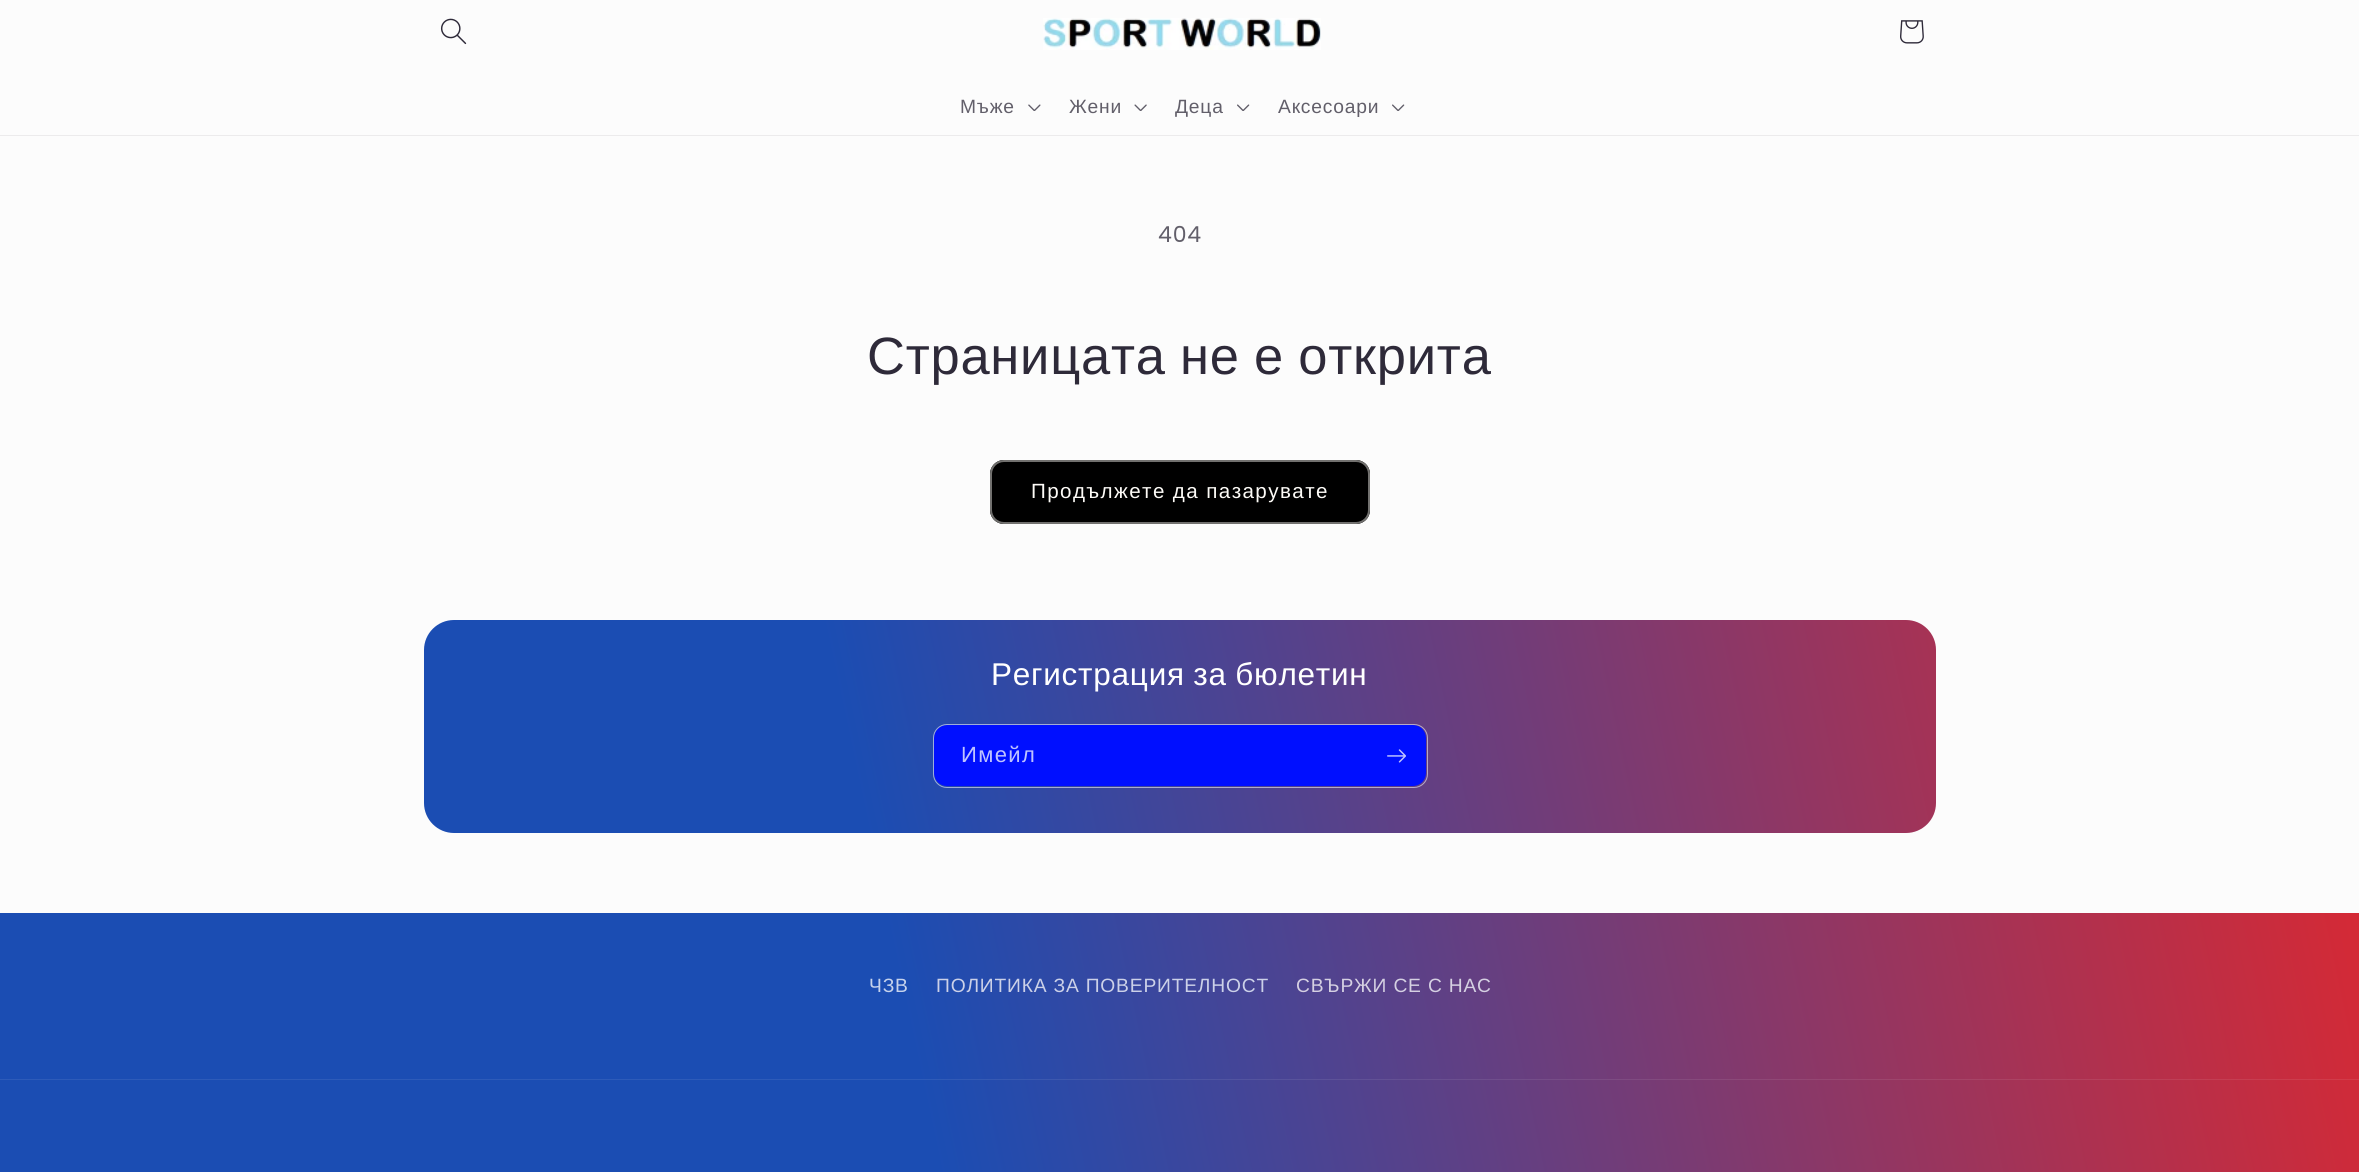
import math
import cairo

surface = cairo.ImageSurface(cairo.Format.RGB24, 2359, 1172)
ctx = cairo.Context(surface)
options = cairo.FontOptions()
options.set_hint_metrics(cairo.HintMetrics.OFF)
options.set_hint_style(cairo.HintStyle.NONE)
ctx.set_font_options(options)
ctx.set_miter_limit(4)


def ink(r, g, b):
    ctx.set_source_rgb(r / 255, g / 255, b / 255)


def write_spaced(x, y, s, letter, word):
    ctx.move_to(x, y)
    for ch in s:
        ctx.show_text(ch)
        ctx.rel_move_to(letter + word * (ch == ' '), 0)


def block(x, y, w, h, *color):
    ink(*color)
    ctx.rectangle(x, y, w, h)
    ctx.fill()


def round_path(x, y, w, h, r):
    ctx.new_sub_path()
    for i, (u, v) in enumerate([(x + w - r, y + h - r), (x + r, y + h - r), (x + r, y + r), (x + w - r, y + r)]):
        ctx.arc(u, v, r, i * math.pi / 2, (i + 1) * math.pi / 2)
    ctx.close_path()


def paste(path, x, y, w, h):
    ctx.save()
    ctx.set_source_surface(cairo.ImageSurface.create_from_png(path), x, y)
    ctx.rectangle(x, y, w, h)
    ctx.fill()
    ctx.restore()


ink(252, 252, 252)
ctx.paint()
block(0, 135, 2359, 1, 236, 235, 236)
paste("pic1.png", 440, 18, 27, 27)
paste("pic2.png", 1043, 18, 278, 32)
paste("pic3.png", 1900, 20, 24, 24)
ctx.select_font_face("Liberation Sans")
ctx.set_font_size(19.25)
ink(98, 95, 106)
write_spaced(960, 113, "Мъже", 0.8, 0)
paste("pic4.png", 1028, 104, 13, 7)
write_spaced(1069, 113, "Жени", 0.8, 0)
paste("pic5.png", 1134, 104, 13, 7)
write_spaced(1175, 113, "Деца", 0.8, 0)
paste("pic6.png", 1237, 104, 13, 7)
write_spaced(1278, 113, "Аксесоари", 0.8, 0)
paste("pic6.png", 1392, 104, 13, 7)
ctx.select_font_face("Poppins")
ctx.set_font_size(22)
write_spaced(1158, 242, "404", 0.8, 0)
ctx.select_font_face("Liberation Sans")
ctx.set_font_size(52.5)
ink(46, 42, 57)
write_spaced(867, 374, "Страницата не е открита", 0.75, -1)
ink(0, 0, 0)
round_path(990, 460, 380, 64, 14)
ctx.fill()
round_path(990.5, 460.5, 379, 63, 13.5)
ctx.set_line_width(1)
ctx.stroke()
round_path(991, 461, 378, 62, 13)
ctx.set_source_rgba(0.992, 0.984, 0.969, 0.45)
ctx.set_line_width(2)
ctx.stroke()
ctx.set_font_size(20.6)
ink(253, 251, 247)
write_spaced(1031, 498, "Продължете да пазарувате", 1.4, 0)
gradient = cairo.LinearGradient(-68, 852, 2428, 321)
gradient.add_color_stop_rgba(0.36, 0.106, 0.302, 0.702, 1)
gradient.add_color_stop_rgba(1, 0.929, 0.145, 0.145, 1)
ctx.set_source(gradient)
round_path(424, 620, 1512, 213, 30)
ctx.fill()
ctx.set_font_size(31.5)
ink(255, 255, 255)
write_spaced(991, 685, "Регистрация за бюлетин", 0.75, -1)
ink(0, 15, 255)
round_path(934, 725, 492, 61, 13)
ctx.fill()
round_path(933.5, 724.5, 494, 63, 13.5)
ctx.set_source_rgba(1, 1, 1, 0.55)
ctx.set_line_width(1)
ctx.stroke()
ctx.set_font_size(22)
ink(191, 195, 255)
write_spaced(961, 762, "Имейл", 1.4, 0)
paste("pic7.png", 1387, 749, 19, 14)
gradient = cairo.LinearGradient(-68, 852, 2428, 321)
gradient.add_color_stop_rgba(0.36, 0.106, 0.302, 0.702, 1)
gradient.add_color_stop_rgba(1, 0.929, 0.145, 0.145, 1)
ctx.set_source(gradient)
ctx.rectangle(0, 913, 2359, 259)
ctx.fill()
gradient = cairo.LinearGradient(-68, 852, 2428, 321)
gradient.add_color_stop_rgba(0.36, 0.176, 0.357, 0.725, 1)
gradient.add_color_stop_rgba(1, 0.933, 0.212, 0.212, 1)
ctx.set_source(gradient)
ctx.rectangle(0, 1079, 2359, 1)
ctx.fill()
ctx.set_font_size(19.25)
ink(198, 211, 236)
write_spaced(869, 992, "ЧЗВ", 0.8, 0)
ink(204, 209, 232)
write_spaced(936, 992, "ПОЛИТИКА ЗА ПОВЕРИТЕЛНОСТ", 0.8, 0)
ink(213, 208, 226)
write_spaced(1296, 992, "СВЪРЖИ СЕ С НАС", 0.8, 0)
surface.write_to_png("screenshot.png")
